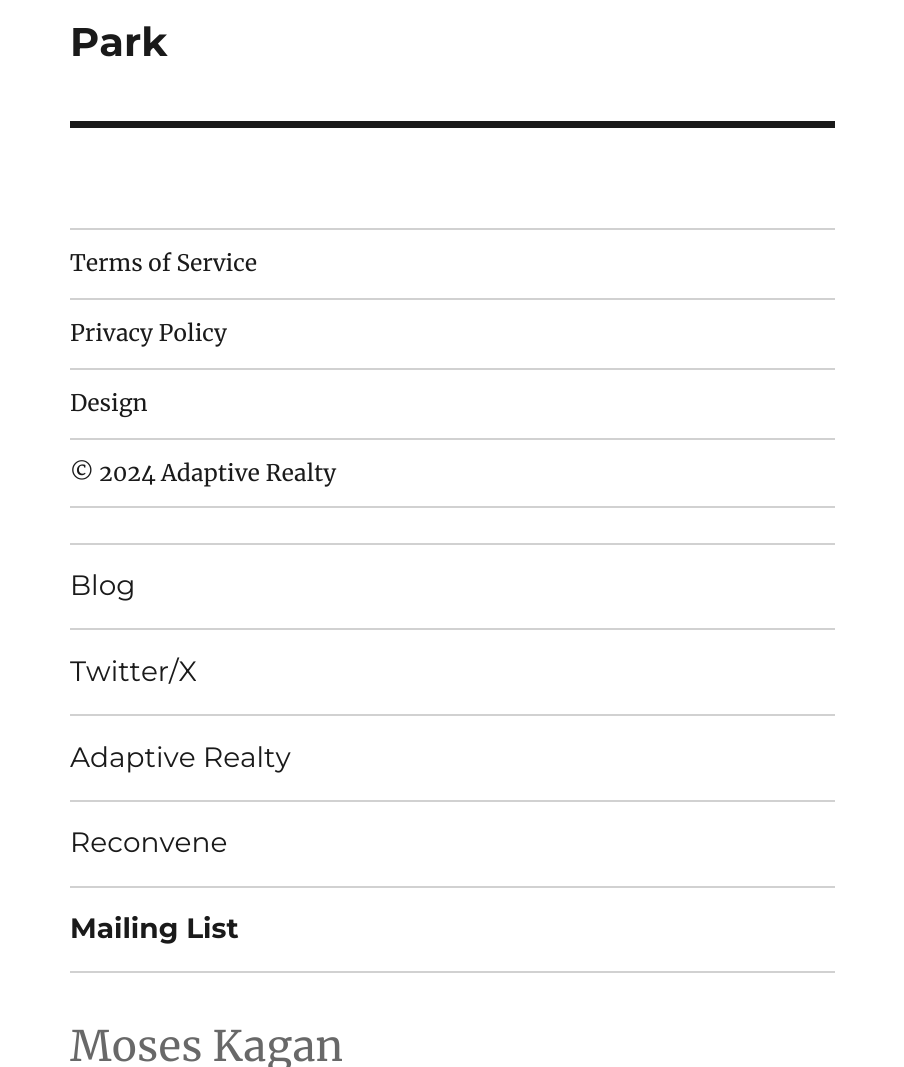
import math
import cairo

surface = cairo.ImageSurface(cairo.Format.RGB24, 904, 1067)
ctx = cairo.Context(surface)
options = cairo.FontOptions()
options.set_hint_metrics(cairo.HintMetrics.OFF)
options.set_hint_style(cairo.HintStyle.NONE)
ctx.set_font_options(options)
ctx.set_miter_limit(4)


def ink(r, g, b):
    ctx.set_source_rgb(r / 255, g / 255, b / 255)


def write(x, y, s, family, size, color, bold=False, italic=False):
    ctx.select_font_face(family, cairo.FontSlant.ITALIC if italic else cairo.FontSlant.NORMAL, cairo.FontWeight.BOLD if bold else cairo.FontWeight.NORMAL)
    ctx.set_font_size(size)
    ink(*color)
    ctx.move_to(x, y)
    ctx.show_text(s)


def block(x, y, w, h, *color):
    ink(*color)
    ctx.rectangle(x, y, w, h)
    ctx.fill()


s1 = dict(family="Montserrat Thin", size=40, color=(26, 26, 26))
s2 = dict(family="Merriweather", size=22.75, color=(26, 26, 26))
s3 = dict(family="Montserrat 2 Thin", size=28, color=(26, 26, 26))
s4 = dict(family="Montserrat Thin", size=28, color=(26, 26, 26))
s5 = dict(family="Merriweather", size=42, color=(104, 104, 104))

ink(255, 255, 255)
ctx.paint()
block(70, 121, 765, 7, 26, 26, 26)
write(70, 56, "Park", **s1)
block(70, 506, 765, 2, 209, 209, 209)
block(70, 228, 765, 2, 209, 209, 209)
write(70, 271, "Terms of Service", **s2)
block(70, 298, 765, 2, 209, 209, 209)
write(70, 341, "Privacy Policy", **s2)
block(70, 368, 765, 2, 209, 209, 209)
write(70, 411, "Design", **s2)
block(70, 438, 765, 2, 209, 209, 209)
write(70, 481, "© 2024 Adaptive Realty", **s2)
block(70, 971, 765, 2, 209, 209, 209)
block(70, 543, 765, 2, 209, 209, 209)
write(70, 595, "Blog", **s3)
block(70, 628, 765, 2, 209, 209, 209)
write(70, 681, "Twitter/X", **s3)
block(70, 714, 765, 2, 209, 209, 209)
write(70, 767, "Adaptive Realty", **s3)
block(70, 800, 765, 2, 209, 209, 209)
write(70, 852, "Reconvene", **s3)
block(70, 886, 765, 2, 209, 209, 209)
write(70, 938, "Mailing List", **s4)
write(70, 1061, "Moses Kagan", **s5)
surface.write_to_png("screenshot.png")
